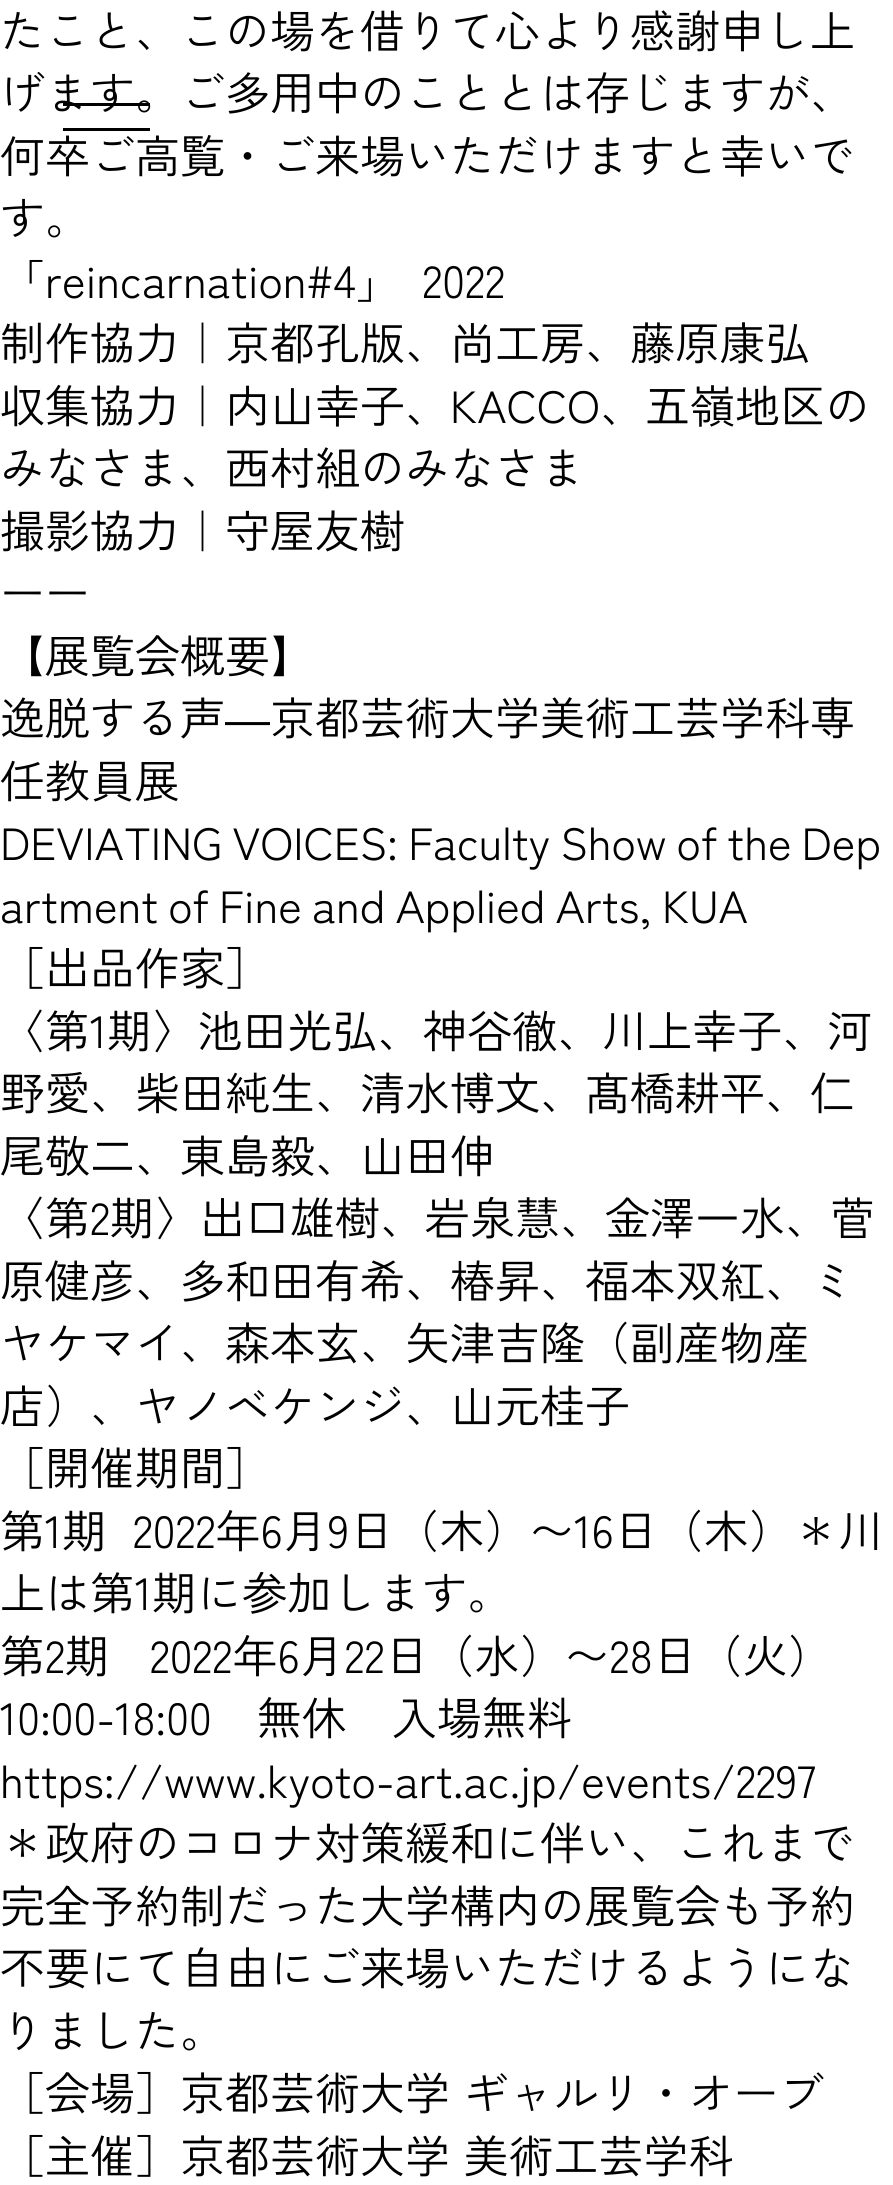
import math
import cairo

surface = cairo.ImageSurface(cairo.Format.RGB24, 893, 2185)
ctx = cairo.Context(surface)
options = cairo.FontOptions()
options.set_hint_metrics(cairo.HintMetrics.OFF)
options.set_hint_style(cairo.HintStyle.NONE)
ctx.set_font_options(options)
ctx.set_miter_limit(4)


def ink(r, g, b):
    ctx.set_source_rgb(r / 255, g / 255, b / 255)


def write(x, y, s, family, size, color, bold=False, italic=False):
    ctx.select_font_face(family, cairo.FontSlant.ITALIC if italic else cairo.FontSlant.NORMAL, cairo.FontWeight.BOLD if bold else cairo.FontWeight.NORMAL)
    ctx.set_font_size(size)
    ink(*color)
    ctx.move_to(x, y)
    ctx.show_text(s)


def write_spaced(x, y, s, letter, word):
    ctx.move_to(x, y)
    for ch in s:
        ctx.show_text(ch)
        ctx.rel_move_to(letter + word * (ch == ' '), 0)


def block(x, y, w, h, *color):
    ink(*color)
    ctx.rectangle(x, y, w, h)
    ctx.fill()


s1 = dict(family="Zen Kaku Gothic New", size=45, color=(0, 0, 0))
s2 = dict(family="Liberation Sans", size=45, color=(0, 0, 0))

ink(255, 255, 255)
ctx.paint()
write(0, 48, "たこと、この場を借りて心より感謝申し上", **s1)
write(0, 110, "げます。ご多用中のこととは存じますが、", **s1)
write(0, 173, "何卒ご高覧・ご来場いただけますと幸いで", **s1)
write(0, 235, "す。", **s1)
write_spaced(0, 298, "「reincarnation#4」 2022", 0, 9)
write(0, 360, "制作協力｜京都孔版、尚工房、藤原康弘", **s1)
write(0, 423, "収集協力｜内山幸子、KACCO、五嶺地区の", **s1)
write(0, 485, "みなさま、西村組のみなさま", **s1)
write(0, 548, "撮影協力｜守屋友樹", **s1)
write(0, 610, "ーー", **s1)
write(0, 673, "【展覧会概要】", **s1)
write(0, 735, "逸脱する声", **s1)
write(225, 735, "―", **s2)
write(270, 735, "京都芸術大学美術工芸学科専", **s1)
write(0, 798, "任教員展", **s1)
write_spaced(0, 860, "DEVIATING VOICES: Faculty Show of the Dep", 0, -2.5)
write_spaced(0, 923, "artment of Fine and Applied Arts, KUA", 0, -2.5)
write(0, 985, "［出品作家］", **s1)
write(0, 1048, "〈第1期〉池田光弘、神谷徹、川上幸子、河", **s1)
write(0, 1110, "野愛、柴田純生、清水博文、髙橋耕平、仁", **s1)
write(0, 1173, "尾敬二、東島毅、山田伸", **s1)
write(0, 1235, "〈第2期〉出口雄樹、岩泉慧、金澤一水、菅", **s1)
write(0, 1298, "原健彦、多和田有希、椿昇、福本双紅、ミ", **s1)
write(0, 1360, "ヤケマイ、森本玄、矢津吉隆（副産物産", **s1)
write(0, 1423, "店）、ヤノベケンジ、山元桂子", **s1)
write(0, 1485, "［開催期間］", **s1)
write_spaced(0, 1548, "第1期 2022年6月9日（木）〜16日（木）＊川", 0, 13)
write(0, 1610, "上は第1期に参加します。", **s1)
write_spaced(0, 1673, "第2期 2022年6月22日（水）〜28日（火）", 0, 27)
write(0, 1735, "10:00-18:00　無休　入場無料", **s1)
write(0, 1798, "https://www.kyoto-art.ac.jp/events/2297", **s1)
write(0, 1860, "＊政府のコロナ対策緩和に伴い、これまで", **s1)
write(0, 1923, "完全予約制だった大学構内の展覧会も予約", **s1)
write(0, 1985, "不要にて自由にご来場いただけるようにな", **s1)
write(0, 2048, "りました。", **s1)
write_spaced(0, 2110, "［会場］京都芸術大学 ギャルリ・オーブ", 0, 1)
write_spaced(0, 2173, "［主催］京都芸術大学 美術工芸学科", 0, 1)
block(63, 103, 87, 3, 0, 0, 0)
block(63, 128, 87, 3, 0, 0, 0)
surface.write_to_png("screenshot.png")
